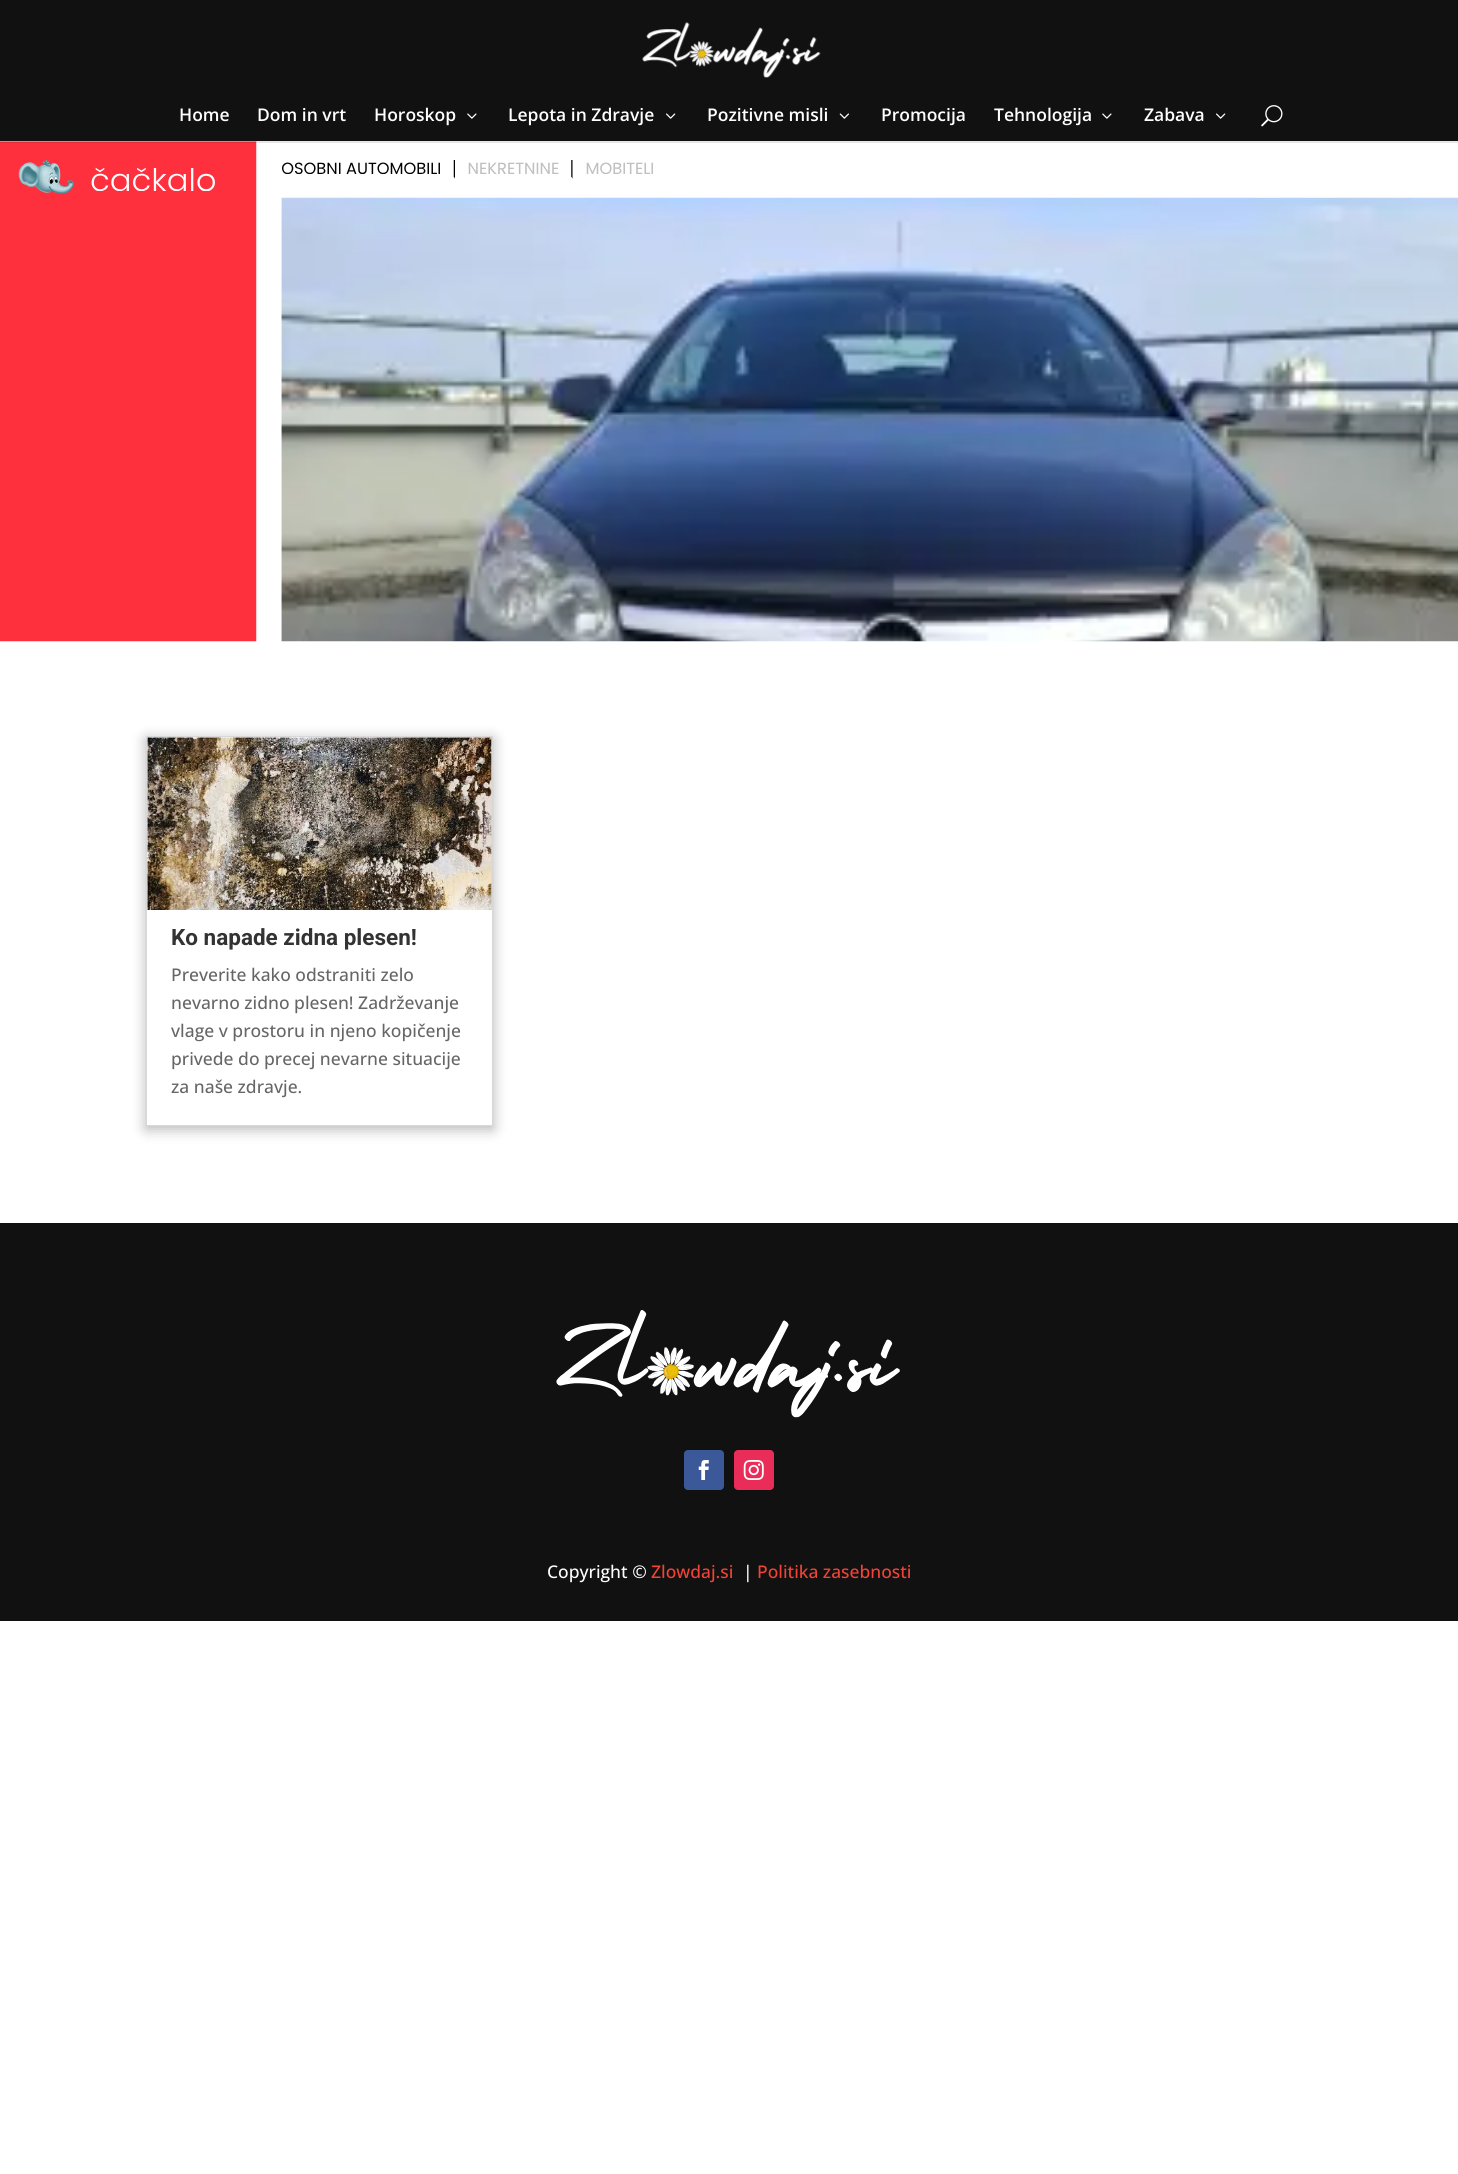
import math
import cairo

surface = cairo.ImageSurface(cairo.Format.RGB24, 1458, 2174)
ctx = cairo.Context(surface)
options = cairo.FontOptions()
options.set_hint_metrics(cairo.HintMetrics.OFF)
options.set_hint_style(cairo.HintStyle.NONE)
ctx.set_font_options(options)
ctx.set_miter_limit(4)


def ink(r, g, b):
    ctx.set_source_rgb(r / 255, g / 255, b / 255)


def write(x, y, s, family, size, color, bold=False, italic=False):
    ctx.select_font_face(family, cairo.FontSlant.ITALIC if italic else cairo.FontSlant.NORMAL, cairo.FontWeight.BOLD if bold else cairo.FontWeight.NORMAL)
    ctx.set_font_size(size)
    ink(*color)
    ctx.move_to(x, y)
    ctx.show_text(s)


def block(x, y, w, h, *color):
    ink(*color)
    ctx.rectangle(x, y, w, h)
    ctx.fill()


def round_path(x, y, w, h, r):
    ctx.new_sub_path()
    for i, (u, v) in enumerate([(x + w - r, y + h - r), (x + r, y + h - r), (x + r, y + r), (x + w - r, y + r)]):
        ctx.arc(u, v, r, i * math.pi / 2, (i + 1) * math.pi / 2)
    ctx.close_path()


def blur_box(x, y, w, h, r, blur, alpha):
    ctx.push_group_with_content(cairo.Content.ALPHA)
    ctx.set_operator(cairo.Operator.SOURCE)
    for i in range(15, -16, -2):
        e = blur * i / 6
        if min(w, h) + 2 * e > 0:
            ctx.set_source_rgba(0, 0, 0, alpha * math.erfc((i - 1) / 8.5) / 2)
            round_path(x - e, y - e, w + 2 * e, h + 2 * e, max(0, min(r + e + blur * .6, min(w, h) / 2 + e)))
            ctx.fill()
    ctx.mask(ctx.pop_group())


def paste(path, x, y, w, h):
    ctx.save()
    ctx.set_source_surface(cairo.ImageSurface.create_from_png(path), x, y)
    ctx.rectangle(x, y, w, h)
    ctx.fill()
    ctx.restore()


s1 = dict(family="Open Sans SemiBold", size=17.5, color=(255, 255, 255))
s2 = dict(family="Roboto", size=22.5, color=(51, 51, 51), bold=True)
s3 = dict(family="Open Sans Medium", size=17.5, color=(102, 102, 102))
s4 = dict(family="Open Sans Medium", size=17.5, color=(255, 255, 255))
s5 = dict(family="Open Sans Medium", size=17.5, color=(244, 67, 54))

ink(255, 255, 255)
ctx.paint()
paste("pic6.png", 0, 141, 1458, 501)
ctx.set_source_rgba(0, 0, 0, 0.1)
ctx.new_path()
ctx.move_to(0, 141)
ctx.line_to(0, 143)
ctx.line_to(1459, 143)
ctx.line_to(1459, 1)
ctx.line_to(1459, 141)
ctx.close_path()
ctx.fill()
block(0, 0, 1458, 141, 17, 17, 17)
paste("pic1.png", 642, 22, 179, 56)
write(179, 121, "Home", **s1)
write(257, 121, "Dom in vrt", **s1)
write(374, 121, "Horoskop", **s1)
paste("pic2.png", 467, 113, 10, 6)
write(508, 121, "Lepota in Zdravje", **s1)
paste("pic3.png", 666, 113, 10, 6)
write(707, 121, "Pozitivne misli", **s1)
paste("pic4.png", 839, 113, 10, 6)
write(881, 121, "Promocija", **s1)
write(994, 121, "Tehnologija", **s1)
paste("pic2.png", 1102, 113, 10, 6)
write(1144, 121, "Zabava", **s1)
paste("pic3.png", 1216, 113, 10, 6)
paste("pic5.png", 1261, 105, 22, 22)
ink(0, 0, 0)
blur_box(146, 739, 347, 390, 0, 7, 0.3)
ink(255, 255, 255)
ctx.rectangle(146.5, 736.5, 346, 389)
ctx.fill_preserve()
ink(216, 216, 216)
ctx.set_line_width(1)
ctx.stroke()
block(491, 736, 1, 174, 216, 216, 216)
paste("pic7.png", 147, 737, 345, 173)
write(171, 945, "Ko napade zidna plesen!", **s2)
write(171, 981, "Preverite kako odstraniti zelo", **s3)
write(171, 1009, "nevarno zidno plesen! Zadrževanje", **s3)
write(171, 1037, "vlage v prostoru in njeno kopičenje", **s3)
write(171, 1065, "privede do precej nevarne situacije", **s3)
write(171, 1093, "za naše zdravje.", **s3)
block(0, 1223, 1458, 398, 17, 17, 17)
paste("pic8.png", 556, 1310, 344, 108)
ink(59, 89, 152)
round_path(684, 1450, 40, 40, 4)
ctx.fill()
paste("pic9.png", 698, 1460, 11, 20)
ink(234, 44, 89)
round_path(734, 1450, 40, 40, 4)
ctx.fill()
paste("pic10.png", 743, 1460, 21, 20)
write(547, 1578, "Copyright ©", **s4)
write(651, 1578, "Zlowdaj.si", **s5)
write(743, 1578, "|", **s4)
write(757, 1578, "Politika zasebnosti", **s5)
surface.write_to_png("screenshot.png")
